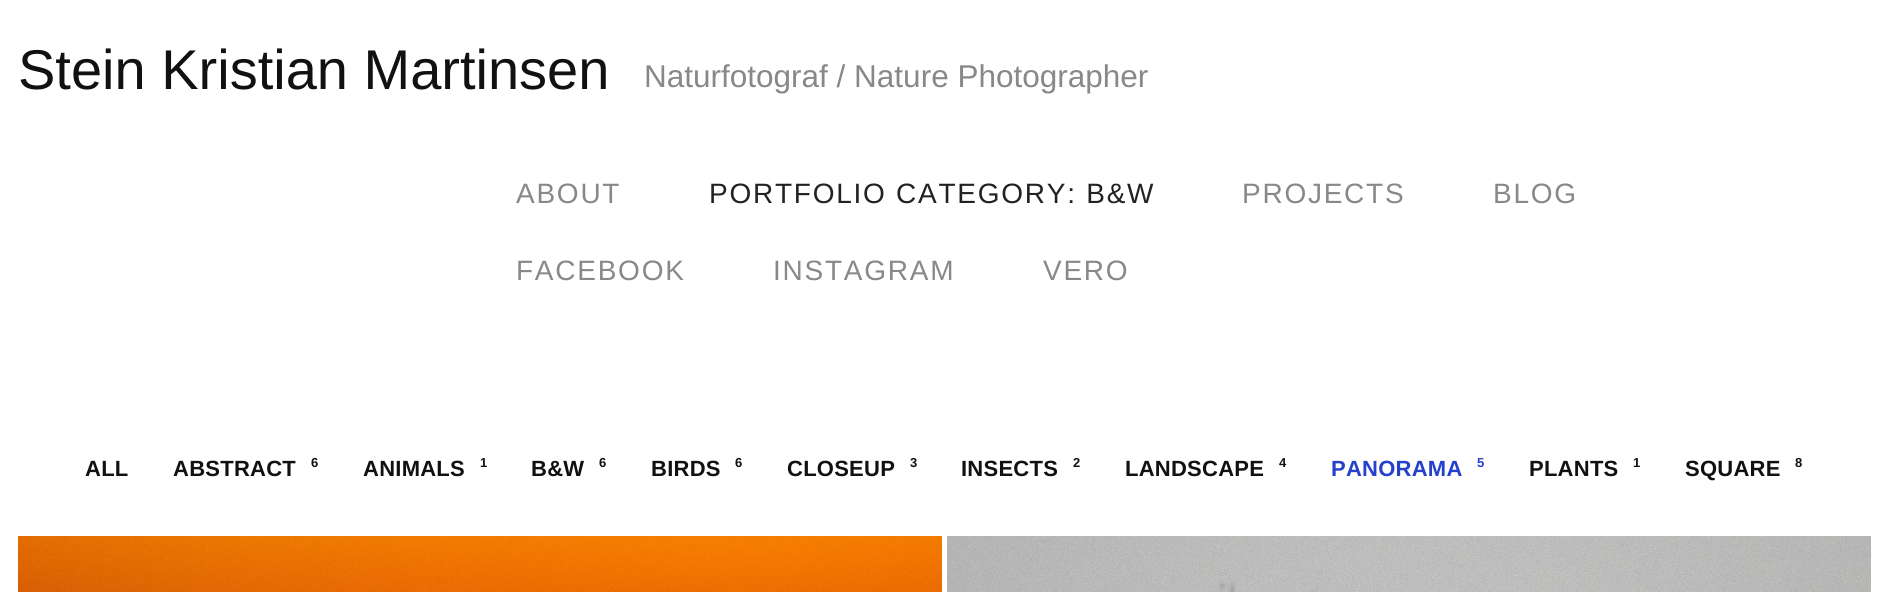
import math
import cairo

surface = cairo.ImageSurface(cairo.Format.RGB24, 1887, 592)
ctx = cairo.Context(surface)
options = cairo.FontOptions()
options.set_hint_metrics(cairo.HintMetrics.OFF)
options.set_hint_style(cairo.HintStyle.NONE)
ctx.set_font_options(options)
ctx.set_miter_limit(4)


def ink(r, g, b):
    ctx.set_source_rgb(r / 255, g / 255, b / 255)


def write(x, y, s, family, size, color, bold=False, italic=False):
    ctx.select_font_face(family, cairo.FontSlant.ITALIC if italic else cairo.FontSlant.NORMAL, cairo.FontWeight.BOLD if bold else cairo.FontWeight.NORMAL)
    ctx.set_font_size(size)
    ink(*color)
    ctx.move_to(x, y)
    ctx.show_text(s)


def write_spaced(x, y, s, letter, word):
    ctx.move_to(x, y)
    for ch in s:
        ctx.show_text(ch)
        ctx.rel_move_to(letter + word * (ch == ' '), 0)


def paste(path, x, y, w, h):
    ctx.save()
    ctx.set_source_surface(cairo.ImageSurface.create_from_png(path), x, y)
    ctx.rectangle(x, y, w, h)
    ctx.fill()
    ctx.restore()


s1 = dict(family="Liberation Sans", size=56, color=(17, 17, 17))
s2 = dict(family="Liberation Sans", size=31.5, color=(136, 136, 136))

ink(255, 255, 255)
ctx.paint()
write(18, 89, "Stein Kristian Martinsen", **s1)
write(644, 87, "Naturfotograf / Nature Photographer", **s2)
ctx.set_font_size(28)
write_spaced(516, 203, "ABOUT", 1.75, 0)
ink(34, 34, 34)
write_spaced(709, 203, "PORTFOLIO CATEGORY: B&W", 1.75, 0)
ink(136, 136, 136)
write_spaced(1242, 203, "PROJECTS", 1.75, 0)
write_spaced(1493, 203, "BLOG", 1.75, 0)
write_spaced(516, 280, "FACEBOOK", 1.75, 0)
write_spaced(773, 280, "INSTAGRAM", 1.75, 0)
write_spaced(1043, 280, "VERO", 1.75, 0)
ctx.select_font_face("Liberation Sans", cairo.FontSlant.NORMAL, cairo.FontWeight.BOLD)
ctx.set_font_size(22)
ink(17, 17, 17)
write_spaced(85, 476, "ALL", 0.25, 0)
write_spaced(173, 476, "ABSTRACT", 0.25, 0)
ctx.set_font_size(13)
write_spaced(311, 467, "6", 0.25, 0)
ctx.set_font_size(22)
write_spaced(363, 476, "ANIMALS", 0.25, 0)
ctx.set_font_size(13)
write_spaced(480, 467, "1", 0.25, 0)
ctx.set_font_size(22)
write_spaced(531, 476, "B&W", 0.25, 0)
ctx.set_font_size(13)
write_spaced(599, 467, "6", 0.25, 0)
ctx.set_font_size(22)
write_spaced(651, 476, "BIRDS", 0.25, 0)
ctx.set_font_size(13)
write_spaced(735, 467, "6", 0.25, 0)
ctx.set_font_size(22)
write_spaced(787, 476, "CLOSEUP", 0.25, 0)
ctx.set_font_size(13)
write_spaced(910, 467, "3", 0.25, 0)
ctx.set_font_size(22)
write_spaced(961, 476, "INSECTS", 0.25, 0)
ctx.set_font_size(13)
write_spaced(1073, 467, "2", 0.25, 0)
ctx.set_font_size(22)
write_spaced(1125, 476, "LANDSCAPE", 0.25, 0)
ctx.set_font_size(13)
write_spaced(1279, 467, "4", 0.25, 0)
ctx.set_font_size(22)
ink(37, 64, 204)
write_spaced(1331, 476, "PANORAMA", 0.25, 0)
ctx.set_font_size(13)
write_spaced(1477, 467, "5", 0.25, 0)
ctx.set_font_size(22)
ink(17, 17, 17)
write_spaced(1529, 476, "PLANTS", 0.25, 0)
ctx.set_font_size(13)
write_spaced(1633, 467, "1", 0.25, 0)
ctx.set_font_size(22)
write_spaced(1685, 476, "SQUARE", 0.25, 0)
ctx.set_font_size(13)
write_spaced(1795, 467, "8", 0.25, 0)
paste("pic1.png", 18, 536, 924, 56)
paste("pic2.png", 947, 536, 924, 56)
surface.write_to_png("screenshot.png")
